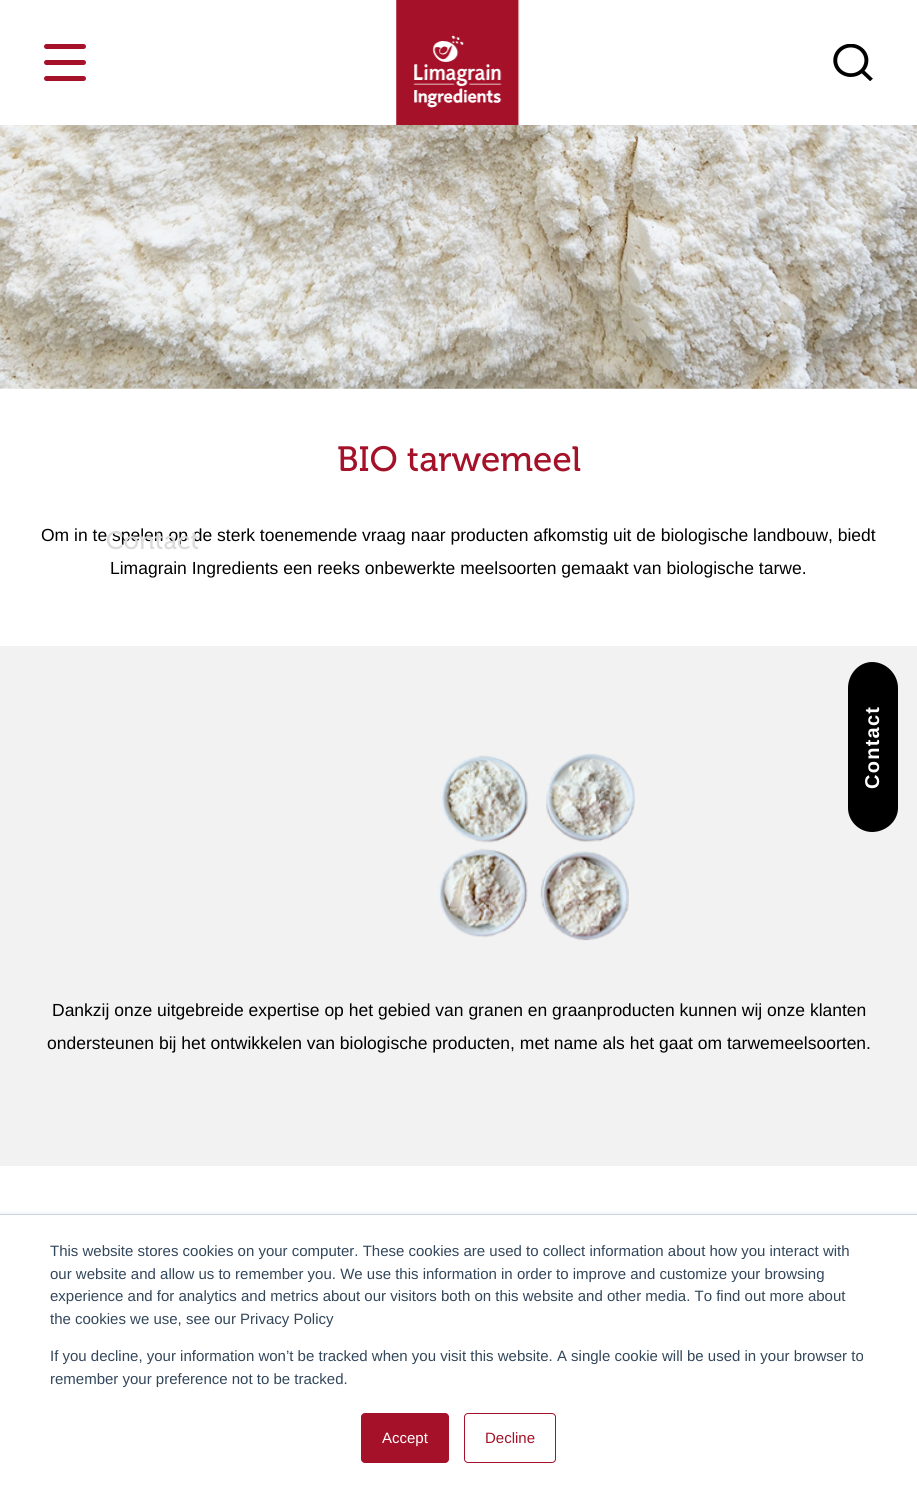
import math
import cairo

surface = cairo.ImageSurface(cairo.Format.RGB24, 917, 1494)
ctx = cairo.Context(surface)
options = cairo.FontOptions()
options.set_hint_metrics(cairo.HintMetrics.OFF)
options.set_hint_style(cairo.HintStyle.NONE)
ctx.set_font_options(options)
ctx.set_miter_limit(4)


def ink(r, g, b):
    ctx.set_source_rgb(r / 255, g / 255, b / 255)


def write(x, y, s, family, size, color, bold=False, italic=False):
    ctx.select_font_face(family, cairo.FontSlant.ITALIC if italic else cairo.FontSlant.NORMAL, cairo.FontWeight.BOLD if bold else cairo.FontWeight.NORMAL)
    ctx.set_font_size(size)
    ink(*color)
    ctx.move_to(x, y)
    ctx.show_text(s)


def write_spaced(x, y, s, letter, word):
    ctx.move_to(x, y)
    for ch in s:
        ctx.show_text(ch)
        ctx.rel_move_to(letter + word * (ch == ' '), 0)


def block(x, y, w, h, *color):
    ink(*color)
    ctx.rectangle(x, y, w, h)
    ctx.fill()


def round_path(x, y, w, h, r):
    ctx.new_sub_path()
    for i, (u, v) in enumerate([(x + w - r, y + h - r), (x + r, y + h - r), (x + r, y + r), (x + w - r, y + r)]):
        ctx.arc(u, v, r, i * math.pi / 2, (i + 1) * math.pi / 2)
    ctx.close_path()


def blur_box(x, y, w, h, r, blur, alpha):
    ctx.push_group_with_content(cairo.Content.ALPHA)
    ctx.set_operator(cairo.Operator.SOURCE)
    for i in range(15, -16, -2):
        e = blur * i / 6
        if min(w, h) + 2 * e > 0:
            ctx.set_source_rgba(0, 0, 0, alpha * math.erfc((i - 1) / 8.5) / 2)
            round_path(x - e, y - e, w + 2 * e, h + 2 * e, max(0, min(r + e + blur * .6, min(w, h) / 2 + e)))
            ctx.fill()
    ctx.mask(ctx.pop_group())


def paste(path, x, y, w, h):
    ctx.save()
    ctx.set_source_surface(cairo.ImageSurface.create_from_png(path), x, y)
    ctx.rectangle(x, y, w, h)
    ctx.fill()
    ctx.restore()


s1 = dict(family="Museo", size=35, color=(164, 17, 40))
s2 = dict(family="Liberation Sans", size=17.5, color=(0, 0, 0))
s3 = dict(family="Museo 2", size=25, color=(219, 219, 219))
s4 = dict(family="Liberation Sans", size=15, color=(51, 71, 91))
s5 = dict(family="Liberation Sans", size=15, color=(255, 255, 255))
s6 = dict(family="Liberation Sans", size=15, color=(164, 17, 40))

ink(255, 255, 255)
ctx.paint()
paste("pic1.png", 0, 125, 917, 264)
write(337, 471, "BIO tarwemeel", **s1)
write(41, 541, "Om in te spelen op de sterk toenemende vraag naar producten afkomstig uit de biologische landbouw, biedt", **s2)
write(110, 574, "Limagrain Ingredients een reeks onbewerkte meelsoorten gemaakt van biologische tarwe.", **s2)
block(0, 646, 917, 520, 242, 242, 242)
paste("pic2.png", 437, 753, 198, 188)
write(52, 1016, "Dankzij onze uitgebreide expertise op het gebied van granen en graanproducten kunnen wij onze klanten", **s2)
write(47, 1049, "ondersteunen bij het ontwikkelen van biologische producten, met name als het gaat om tarwemeelsoorten.", **s2)
ink(164, 17, 40)
round_path(44, 44, 42, 5, 2.5)
ctx.fill()
round_path(44, 60, 42, 5, 2.5)
ctx.fill()
round_path(44, 76, 42, 5, 2.5)
ctx.fill()
paste("pic3.png", 396, 0, 124, 125)
paste("pic4.png", 833, 44, 40, 37)
write(106, 549, "Contact", **s3)
ink(0, 0, 0)
ctx.new_path()
ctx.move_to(872, 832)
ctx.curve_to(859, 832, 848, 821, 848, 808)
ctx.line_to(848, 688)
ctx.curve_to(848, 674, 859, 662, 872, 662)
ctx.curve_to(886, 662, 898, 674, 898, 688)
ctx.line_to(898, 808)
ctx.curve_to(898, 821, 886, 832, 872, 832)
ctx.close_path()
ctx.fill()
ctx.select_font_face("Liberation Sans", cairo.FontSlant.NORMAL, cairo.FontWeight.BOLD)
ctx.set_font_size(20)
ink(255, 255, 255)
ctx.save()
ctx.translate(879, 789)
ctx.rotate(-90 * math.pi / 180)
write_spaced(0, 0, "Contact", 1.25, 0)
ctx.restore()
ink(234, 240, 246)
blur_box(0, 1213, 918, 281, 0, 2, 1)
block(0, 1215, 917, 279, 255, 255, 255)
block(0, 1214, 917, 1, 203, 214, 226)
write(50, 1256, "This website stores cookies on your computer. These cookies are used to collect information about how you interact with", **s4)
write(50, 1279, "our website and allow us to remember you. We use this information in order to improve and customize your browsing", **s4)
write(50, 1301, "experience and for analytics and metrics about our visitors both on this website and other media. To find out more about", **s4)
write(50, 1324, "the cookies we use, see our Privacy Policy", **s4)
write(50, 1361, "If you decline, your information won’t be tracked when you visit this website. A single cookie will be used in your browser to", **s4)
write(50, 1384, "remember your preference not to be tracked.", **s4)
ink(165, 17, 41)
round_path(361.5, 1413.5, 87, 49, 3.5)
ctx.fill_preserve()
ctx.set_line_width(1)
ctx.stroke()
write(382, 1443, "Accept", **s5)
round_path(464.5, 1413.5, 91, 49, 3.5)
ink(165, 17, 41)
ctx.stroke()
write(485, 1443, "Decline", **s6)
surface.write_to_png("screenshot.png")
